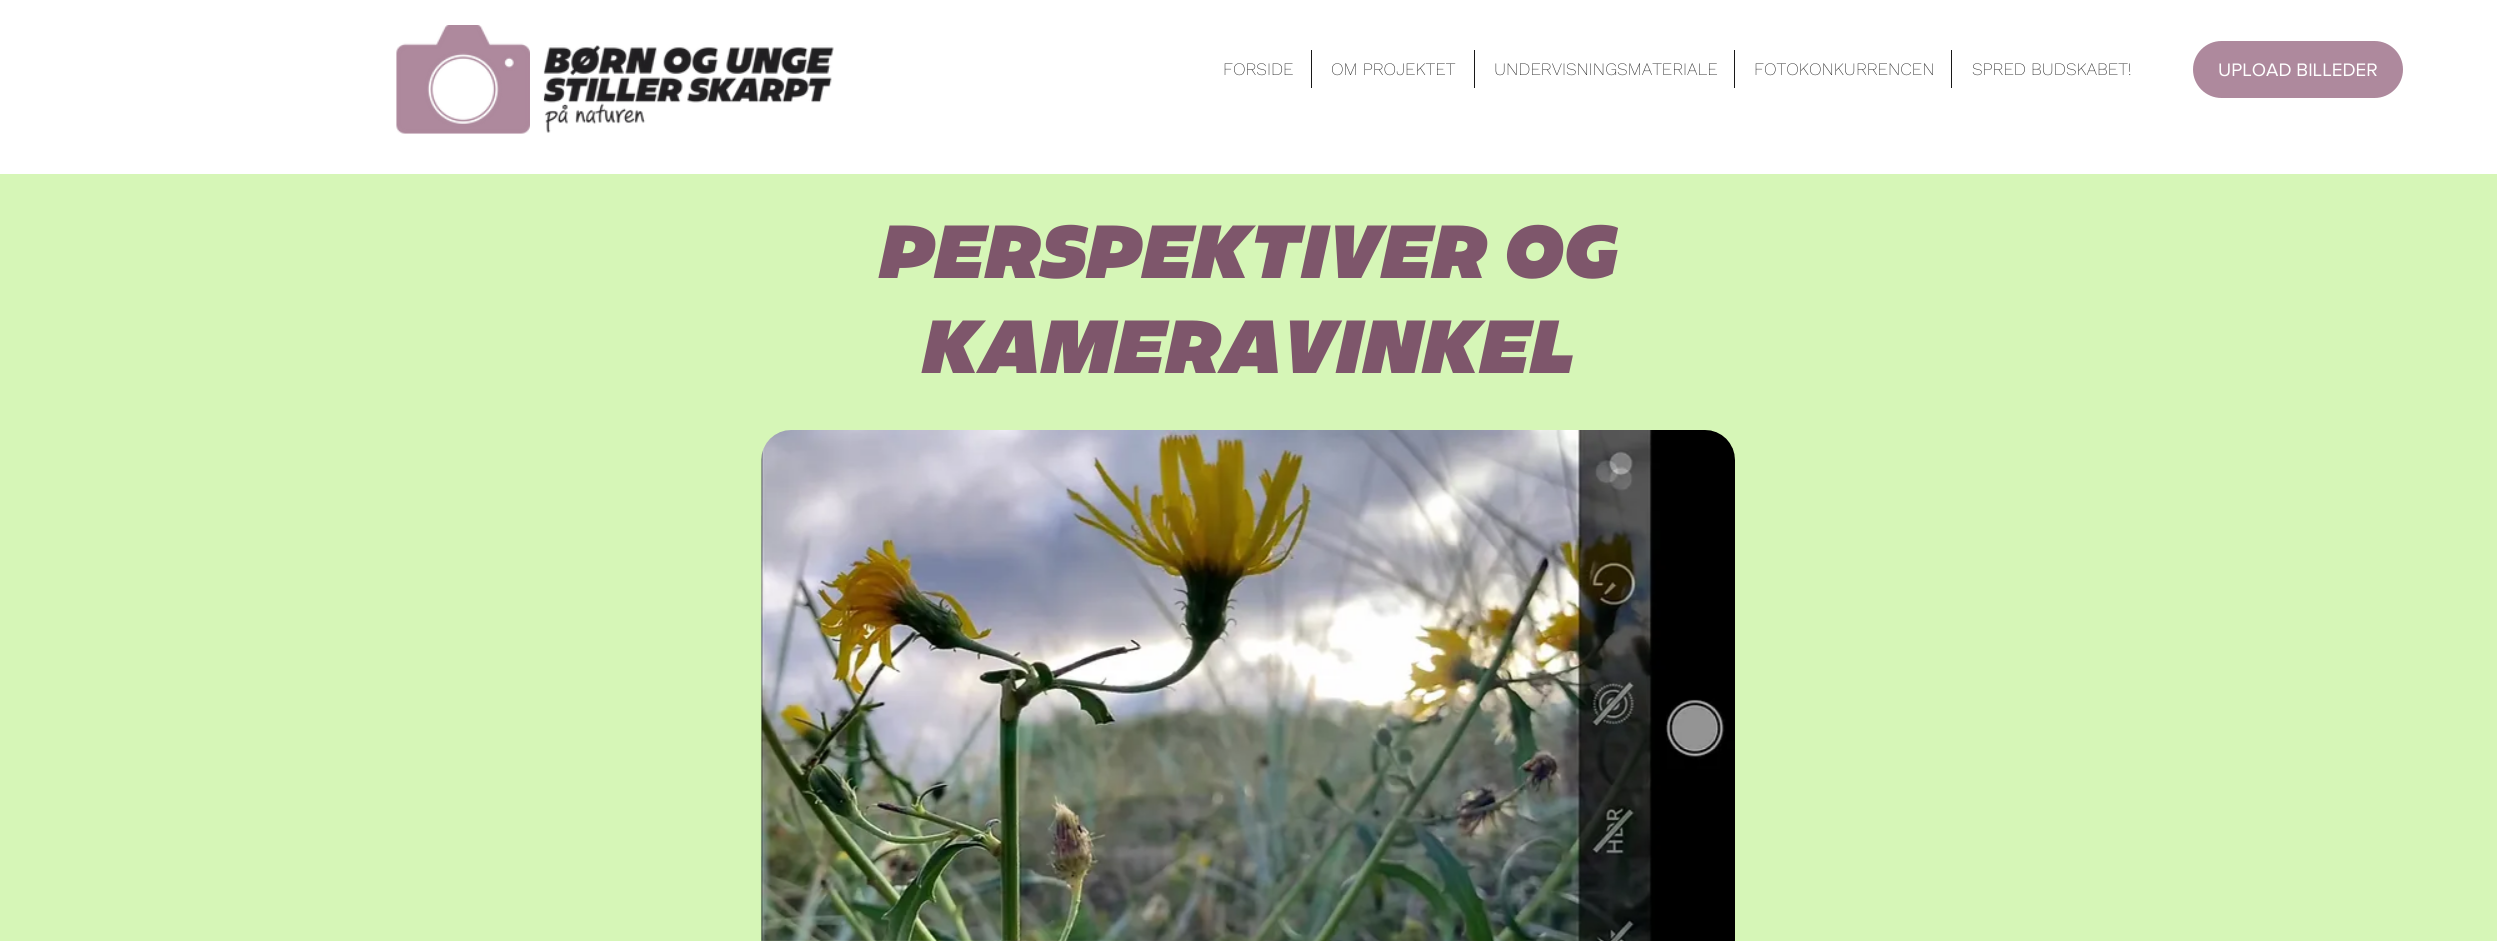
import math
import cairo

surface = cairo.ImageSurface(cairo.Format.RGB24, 2497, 941)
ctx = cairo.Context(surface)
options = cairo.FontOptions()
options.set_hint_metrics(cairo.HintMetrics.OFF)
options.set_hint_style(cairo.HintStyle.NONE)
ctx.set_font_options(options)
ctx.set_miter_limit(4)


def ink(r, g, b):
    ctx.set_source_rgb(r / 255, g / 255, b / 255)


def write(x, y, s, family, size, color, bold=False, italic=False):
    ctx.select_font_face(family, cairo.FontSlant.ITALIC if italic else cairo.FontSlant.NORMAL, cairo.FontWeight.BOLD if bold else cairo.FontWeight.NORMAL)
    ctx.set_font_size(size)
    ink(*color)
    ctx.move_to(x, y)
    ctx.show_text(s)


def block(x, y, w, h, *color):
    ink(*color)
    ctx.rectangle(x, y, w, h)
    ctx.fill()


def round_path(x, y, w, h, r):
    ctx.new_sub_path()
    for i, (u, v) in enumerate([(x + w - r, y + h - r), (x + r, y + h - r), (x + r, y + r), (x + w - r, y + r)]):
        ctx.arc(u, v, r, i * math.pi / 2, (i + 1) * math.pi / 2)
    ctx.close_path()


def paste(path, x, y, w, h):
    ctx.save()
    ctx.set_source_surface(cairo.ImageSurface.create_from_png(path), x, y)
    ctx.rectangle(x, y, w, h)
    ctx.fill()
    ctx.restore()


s1 = dict(family="Work Sans ExtraLight", size=17.5, color=(24, 24, 24))
s2 = dict(family="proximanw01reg", size=18.75, color=(255, 255, 255))
s3 = dict(family="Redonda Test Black", size=75, color=(126, 86, 107))

ink(255, 255, 255)
ctx.paint()
paste("pic1.png", 396, 25, 134, 109)
paste("pic2.png", 543, 45, 291, 88)
write(1223, 75, "FORSIDE", **s1)
block(1311, 50, 1, 38, 24, 24, 24)
write(1331, 75, "OM PROJEKTET", **s1)
block(1474, 50, 1, 38, 24, 24, 24)
write(1494, 75, "UNDERVISNINGSMATERIALE", **s1)
block(1734, 50, 1, 38, 24, 24, 24)
write(1754, 75, "FOTOKONKURRENCEN", **s1)
block(1951, 50, 1, 38, 24, 24, 24)
write(1972, 75, "SPRED BUDSKABET!", **s1)
ink(174, 137, 157)
round_path(2193, 41, 210, 57, 28.5)
ctx.fill()
write(2218, 76, "UPLOAD BILLEDER", **s2)
block(0, 174, 2497, 767, 214, 246, 183)
write(879, 278, "PERSPEKTIVER OG", **s3)
write(922, 373, "KAMERAVINKEL", **s3)
paste("pic3.png", 761, 430, 974, 511)
surface.write_to_png("screenshot.png")
